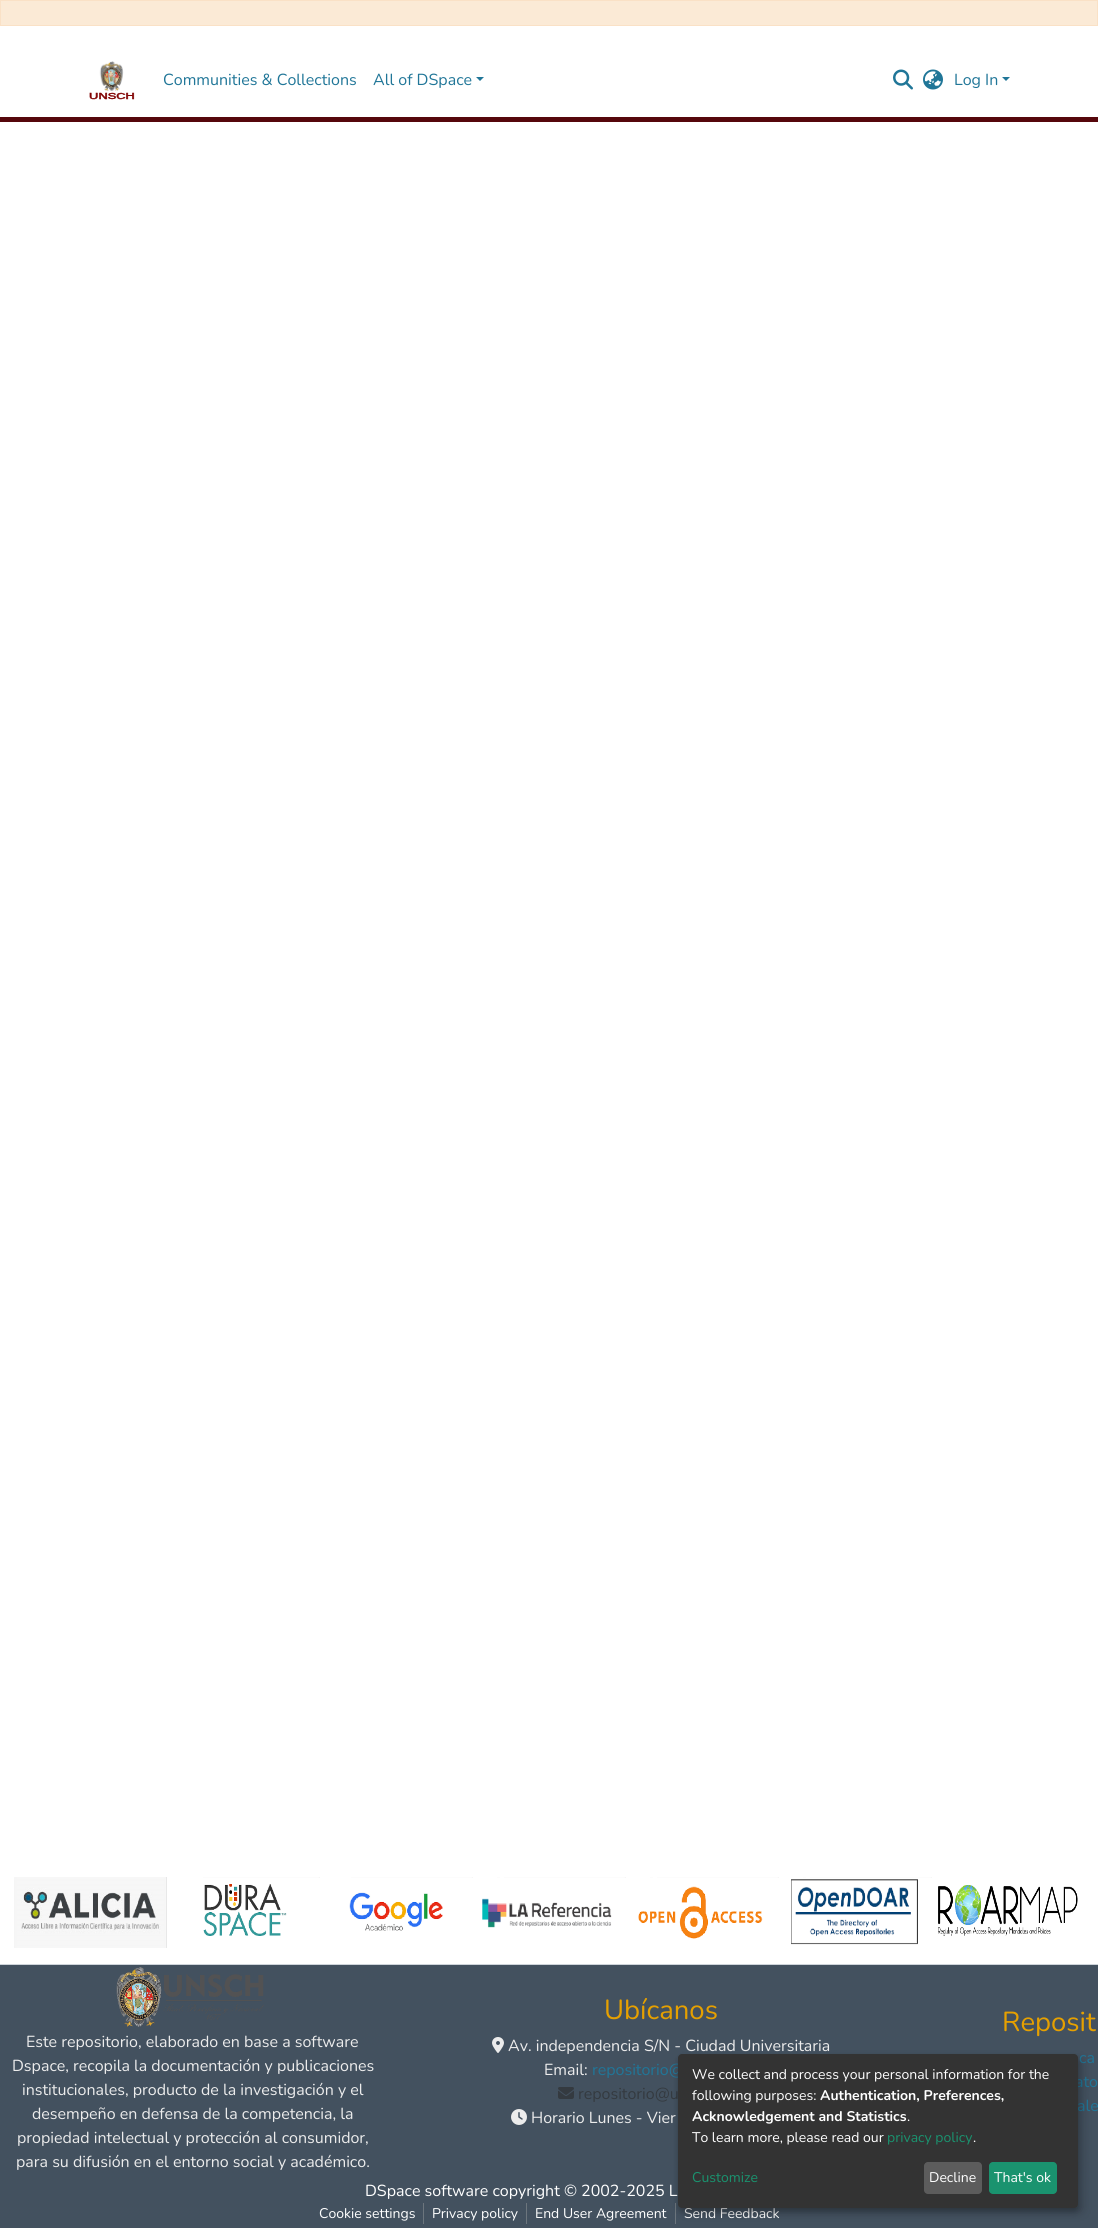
import math
import cairo

surface = cairo.ImageSurface(cairo.Format.RGB24, 1098, 2228)
ctx = cairo.Context(surface)
options = cairo.FontOptions()
options.set_hint_metrics(cairo.HintMetrics.OFF)
options.set_hint_style(cairo.HintStyle.NONE)
ctx.set_font_options(options)
ctx.set_miter_limit(4)


def ink(r, g, b):
    ctx.set_source_rgb(r / 255, g / 255, b / 255)


def write(x, y, s, family, size, color, bold=False, italic=False):
    ctx.select_font_face(family, cairo.FontSlant.ITALIC if italic else cairo.FontSlant.NORMAL, cairo.FontWeight.BOLD if bold else cairo.FontWeight.NORMAL)
    ctx.set_font_size(size)
    ink(*color)
    ctx.move_to(x, y)
    ctx.show_text(s)


def block(x, y, w, h, *color):
    ink(*color)
    ctx.rectangle(x, y, w, h)
    ctx.fill()


def round_path(x, y, w, h, r):
    ctx.new_sub_path()
    for i, (u, v) in enumerate([(x + w - r, y + h - r), (x + r, y + h - r), (x + r, y + r), (x + w - r, y + r)]):
        ctx.arc(u, v, r, i * math.pi / 2, (i + 1) * math.pi / 2)
    ctx.close_path()


def blur_box(x, y, w, h, r, blur, alpha):
    ctx.push_group_with_content(cairo.Content.ALPHA)
    ctx.set_operator(cairo.Operator.SOURCE)
    for i in range(15, -16, -2):
        e = blur * i / 6
        if min(w, h) + 2 * e > 0:
            ctx.set_source_rgba(0, 0, 0, alpha * math.erfc((i - 1) / 8.5) / 2)
            round_path(x - e, y - e, w + 2 * e, h + 2 * e, max(0, min(r + e + blur * .6, min(w, h) / 2 + e)))
            ctx.fill()
    ctx.mask(ctx.pop_group())


def paste(path, x, y, w, h):
    ctx.save()
    ctx.set_source_surface(cairo.ImageSurface.create_from_png(path), x, y)
    ctx.rectangle(x, y, w, h)
    ctx.fill()
    ctx.restore()


s1 = dict(family="Nunito", size=16, color=(32, 118, 152))
s2 = dict(family="Nunito", size=16, color=(236, 236, 236))
s3 = dict(family="Nunito", size=27.5, color=(230, 160, 0))
s4 = dict(family="Nunito", size=16, color=(52, 58, 64))
s5 = dict(family="Nunito", size=16, color=(255, 255, 255))
s6 = dict(family="Nunito", size=14, color=(255, 255, 255))
s7 = dict(family="Nunito", size=14, color=(255, 255, 255), bold=True)
s8 = dict(family="Nunito", size=14, color=(26, 147, 111))

ink(255, 255, 255)
ctx.paint()
ink(251, 234, 214)
ctx.rectangle(0.5, 0.5, 1097, 25)
ctx.fill_preserve()
ink(250, 225, 198)
ctx.set_line_width(1)
ctx.stroke()
block(0, 117, 1098, 5, 86, 7, 12)
paste("pic1.png", 89, 61, 46, 39)
write(163, 85, "Communities & Collections", **s1)
write(373, 85, "All of DSpace", **s1)
ctx.new_path()
ctx.move_to(476, 77)
ctx.line_to(484, 77)
ctx.line_to(480, 81)
ctx.close_path()
ctx.fill()
paste("pic2.png", 893, 69, 20, 21)
paste("pic3.png", 923, 69, 20, 21)
write(954, 85, "Log In", **s1)
ctx.new_path()
ctx.move_to(1002, 77)
ctx.line_to(1010, 77)
ctx.line_to(1006, 81)
ctx.close_path()
ctx.fill()
paste("pic4.png", 14, 1877, 153, 71)
paste("pic5.png", 203, 1877, 117, 59)
paste("pic6.png", 349, 1877, 124, 54)
paste("pic7.png", 482, 1877, 144, 51)
paste("pic8.png", 638, 1877, 141, 62)
paste("pic9.png", 791, 1877, 141, 68)
paste("pic10.png", 938, 1885, 140, 51)
block(0, 1965, 1098, 263, 67, 81, 95)
block(0, 1964, 1098, 1, 206, 212, 218)
paste("pic11.png", 116, 1967, 148, 60)
write(26, 2047, "Este repositorio, elaborado en base a software", **s2)
write(12, 2071, "Dspace, recopila la documentación y publicaciones", **s2)
write(22, 2095, "institucionales, producto de la investigación y el", **s2)
write(32, 2119, "desempeño en defensa de la competencia, la", **s2)
write(17, 2143, "propiedad intelectual y protección al consumidor,", **s2)
write(16, 2167, "para su difusión en el entorno social y académico.", **s2)
write(604, 2019, "Ubícanos", **s3)
paste("pic12.png", 492, 2037, 12, 16)
write(508, 2051, "Av. independencia S/N - Ciudad Universitaria", **s2)
write(544, 2075, "Email:", **s2)
write(592, 2075, "repositorio@", **s1)
paste("pic13.png", 558, 2087, 16, 12)
write(578, 2099, "repositorio@u", **s4)
paste("pic14.png", 511, 2109, 16, 16)
write(531, 2123, "Horario Lunes - Vier", **s2)
write(1002, 2031, "Reposit", **s3)
write(1079, 2063, "ca", **s1)
write(1075, 2087, "ato", **s1)
write(1077, 2111, "ale", **s1)
write(365, 2196, "DSpace software copyright © 2002-2025 L", **s5)
write(319, 2218, "Cookie settings", **s6)
block(423, 2203, 1, 21, 108, 117, 125)
write(432, 2218, "Privacy policy", **s6)
block(526, 2203, 1, 21, 108, 117, 125)
write(535, 2218, "End User Agreement", **s6)
block(675, 2203, 1, 21, 108, 117, 125)
write(684, 2218, "Send Feedback", **s6)
ink(0, 0, 0)
blur_box(683, 2059, 400, 154, 4, 5, 0.19)
blur_box(678, 2058, 400, 154, 4, 3, 0.2)
ink(51, 51, 51)
round_path(678, 2054, 400, 154, 4)
ctx.fill()
write(692, 2079, "We collect and process your personal information for the", **s6)
write(692, 2100, "following purposes:", **s6)
write(820, 2100, "Authentication, Preferences,", **s7)
write(692, 2121, "Acknowledgement and Statistics", **s7)
write(907, 2121, ".", **s6)
write(692, 2142, "To learn more, please read our", **s6)
write(887, 2142, "privacy policy", **s8)
write(973, 2142, ".", **s6)
write(692, 2182, "Customize", **s8)
ink(92, 92, 92)
round_path(924, 2162, 58, 32, 4)
ctx.fill()
write(929, 2182, "Decline", **s6)
ink(26, 147, 111)
round_path(989, 2162, 68, 32, 4)
ctx.fill()
write(994, 2182, "That's ok", **s6)
surface.write_to_png("screenshot.png")
